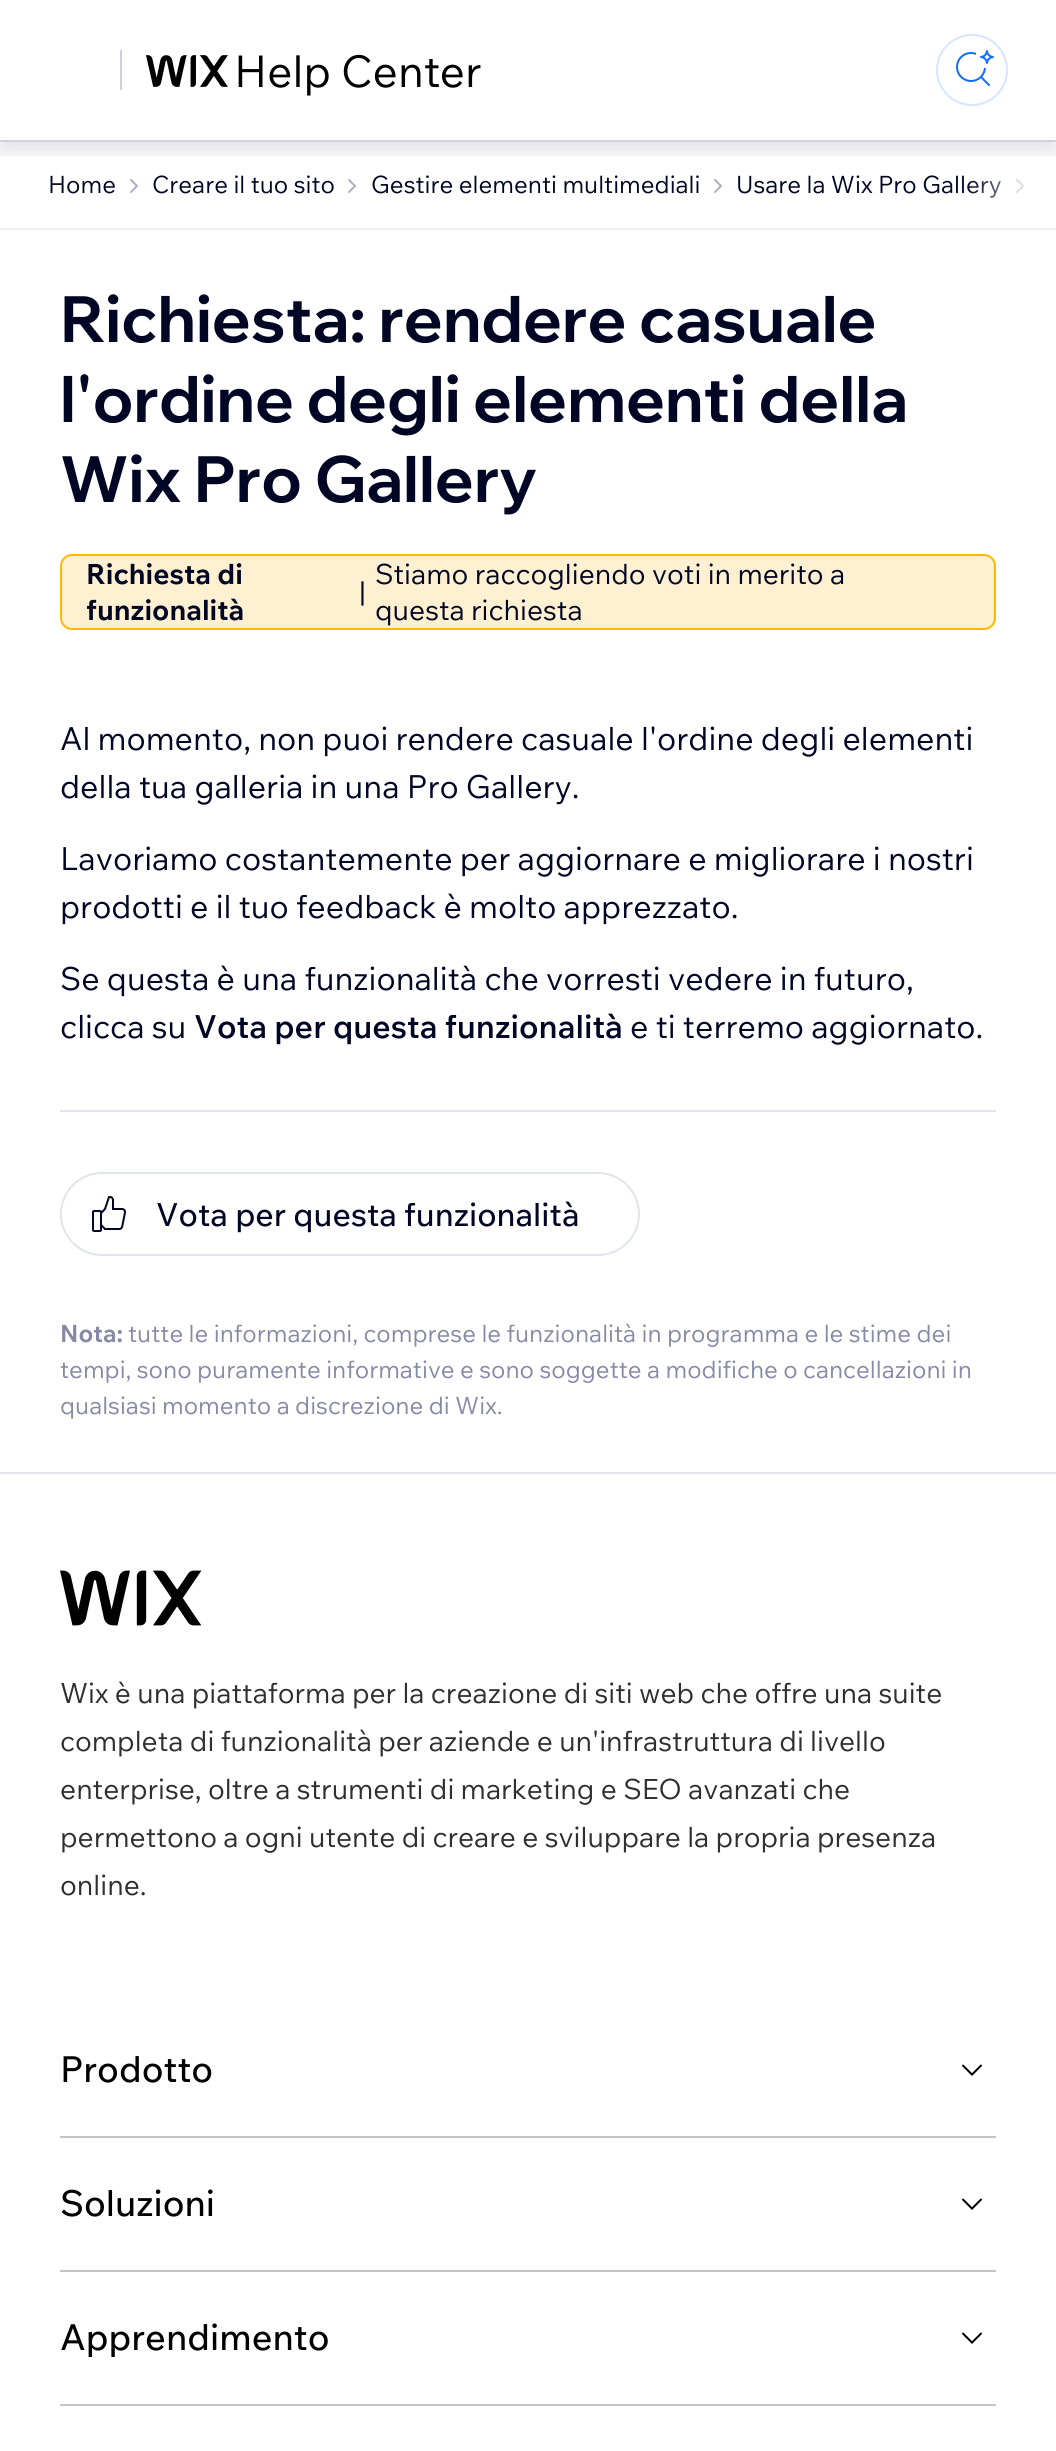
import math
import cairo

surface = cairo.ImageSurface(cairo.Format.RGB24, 1056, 2451)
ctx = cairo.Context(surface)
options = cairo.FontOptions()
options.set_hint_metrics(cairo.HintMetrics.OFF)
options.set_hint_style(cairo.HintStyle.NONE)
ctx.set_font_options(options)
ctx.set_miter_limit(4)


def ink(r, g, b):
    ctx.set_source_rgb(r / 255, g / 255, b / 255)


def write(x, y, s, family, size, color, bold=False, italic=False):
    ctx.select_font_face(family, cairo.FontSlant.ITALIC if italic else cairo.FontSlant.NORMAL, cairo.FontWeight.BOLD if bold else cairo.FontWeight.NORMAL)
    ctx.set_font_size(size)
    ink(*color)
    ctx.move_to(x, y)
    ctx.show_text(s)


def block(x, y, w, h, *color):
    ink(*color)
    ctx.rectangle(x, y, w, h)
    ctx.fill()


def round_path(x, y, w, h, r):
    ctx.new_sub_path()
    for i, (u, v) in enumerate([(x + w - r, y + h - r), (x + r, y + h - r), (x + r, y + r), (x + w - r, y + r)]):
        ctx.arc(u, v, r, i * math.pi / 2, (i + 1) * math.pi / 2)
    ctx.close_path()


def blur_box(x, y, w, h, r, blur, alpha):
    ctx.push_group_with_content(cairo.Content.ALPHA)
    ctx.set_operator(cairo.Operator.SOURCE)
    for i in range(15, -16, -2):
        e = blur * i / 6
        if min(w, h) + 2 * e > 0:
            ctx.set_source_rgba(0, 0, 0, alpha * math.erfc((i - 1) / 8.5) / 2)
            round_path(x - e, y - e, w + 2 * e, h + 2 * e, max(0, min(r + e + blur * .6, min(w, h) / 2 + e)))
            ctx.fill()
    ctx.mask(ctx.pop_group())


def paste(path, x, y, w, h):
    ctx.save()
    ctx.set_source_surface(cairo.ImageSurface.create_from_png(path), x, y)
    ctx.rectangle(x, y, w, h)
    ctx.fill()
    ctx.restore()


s1 = dict(family="Wix Madefor Text", size=24, color=(0, 6, 36))
s2 = dict(family="Wix Madefor Display", size=64, color=(0, 6, 36), bold=True)
s3 = dict(family="Wix Madefor Text", size=28, color=(0, 6, 36), bold=True)
s4 = dict(family="Wix Madefor Text", size=28, color=(0, 6, 36))
s5 = dict(family="Wix Madefor Text", size=32, color=(0, 6, 36))
s6 = dict(family="Wix Madefor Text SemiBold", size=32, color=(0, 6, 36))
s7 = dict(family="Wix Madefor Text Medium", size=32, color=(0, 6, 36))
s8 = dict(family="Wix Madefor Text", size=24, color=(134, 138, 165), bold=True)
s9 = dict(family="Wix Madefor Text", size=24, color=(134, 138, 165))
s10 = dict(family="Wix Madefor Text", size=28, color=(47, 47, 48))
s11 = dict(family="Wix Madefor Text Medium", size=36, color=(0, 0, 0))

ink(255, 255, 255)
ctx.paint()
ctx.new_path()
ctx.move_to(131, 192)
ctx.line_to(137, 186)
ctx.line_to(131, 180)
ink(172, 175, 196)
ctx.set_line_cap(cairo.LineCap.ROUND)
ctx.stroke()
ctx.new_path()
ctx.move_to(349, 192)
ctx.line_to(355, 186)
ctx.line_to(349, 180)
ctx.stroke()
ctx.new_path()
ctx.move_to(715, 192)
ctx.line_to(721, 186)
ctx.line_to(715, 180)
ctx.stroke()
ctx.new_path()
ctx.move_to(1017, 192)
ctx.line_to(1023, 186)
ctx.line_to(1017, 180)
ctx.stroke()
write(736, 193, "Usare la Wix Pro Gallery", **s1)
gradient = cairo.LinearGradient(1056, 185, 966, 185)
gradient.add_color_stop_rgba(0, 1, 1, 1, 1)
gradient.add_color_stop_rgba(1, 1, 1, 1, 0)
ctx.set_source(gradient)
ctx.rectangle(968, 179, 57, 19)
ctx.fill()
ctx.save()
ctx.rectangle(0, 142, 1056, 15)
ctx.clip()
ink(0, 6, 36)
blur_box(0, 0, 1056, 142, 0, 18, 0.1)
ctx.restore()
ctx.save()
ctx.rectangle(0, 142, 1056, 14)
ctx.clip()
ink(0, 6, 36)
blur_box(0, 12, 1056, 142, 0, 6, 0.05)
ctx.restore()
block(0, 140, 1056, 2, 207, 209, 220)
block(120, 50, 2, 40, 207, 209, 220)
paste("pic1.png", 146, 54, 335, 42)
ctx.arc(972, 70, 35, 0, 2 * math.pi)
ink(214, 230, 254)
ctx.set_line_cap(cairo.LineCap.BUTT)
ctx.stroke()
paste("pic2.png", 956, 50, 38, 36)
block(0, 228, 1056, 2, 236, 239, 243)
write(48, 193, "Home", **s1)
write(152, 193, "Creare il tuo sito", **s1)
write(371, 193, "Gestire elementi multimediali", **s1)
write(60, 342, "Richiesta: rendere casuale", **s2)
write(60, 422, "l'ordine degli elementi della", **s2)
write(60, 502, "Wix Pro Gallery", **s2)
ink(255, 240, 209)
round_path(61, 555, 934, 74, 11)
ctx.fill_preserve()
ink(255, 183, 0)
ctx.stroke()
write(86, 584, "Richiesta di", **s3)
write(86, 620, "funzionalità", **s3)
write(359, 602, "|", **s4)
write(375, 584, "Stiamo raccogliendo voti in merito a", **s4)
write(375, 620, "questa richiesta", **s4)
write(60, 750, "Al momento, non puoi rendere casuale l'ordine degli elementi", **s5)
write(60, 798, "della tua galleria in una Pro Gallery.", **s5)
write(60, 870, "Lavoriamo costantemente per aggiornare e migliorare i nostri", **s5)
write(60, 918, "prodotti e il tuo feedback è molto apprezzato.", **s5)
write(60, 990, "Se questa è una funzionalità che vorresti vedere in futuro,", **s5)
write(60, 1038, "clicca su", **s5)
write(194, 1038, "Vota per questa funzionalità", **s6)
write(630, 1038, "e ti terremo aggiornato.", **s5)
block(60, 1110, 936, 2, 223, 229, 235)
round_path(61, 1173, 578, 82, 41)
ctx.stroke()
paste("pic3.png", 92, 1196, 34, 36)
write(156, 1226, "Vota per questa funzionalità", **s7)
write(60, 1342, "Nota:", **s8)
write(128, 1342, "tutte le informazioni, comprese le funzionalità in programma e le stime dei", **s9)
write(60, 1378, "tempi, sono puramente informative e sono soggette a modifiche o cancellazioni in", **s9)
write(60, 1414, "qualsiasi momento a discrezione di Wix.", **s9)
block(0, 1472, 1056, 2, 223, 229, 235)
paste("pic4.png", 60, 1570, 142, 56)
write(60, 1703, "Wix è una piattaforma per la creazione di siti web che offre una suite", **s10)
write(60, 1751, "completa di funzionalità per aziende e un'infrastruttura di livello", **s10)
write(60, 1799, "enterprise, oltre a strumenti di marketing e SEO avanzati che", **s10)
write(60, 1847, "permettono a ogni utente di creare e sviluppare la propria presenza", **s10)
write(60, 1895, "online.", **s10)
block(60, 2136, 936, 2, 196, 196, 196)
write(60, 2082, "Prodotto", **s11)
paste("pic5.png", 962, 2064, 20, 12)
block(60, 2270, 936, 2, 196, 196, 196)
write(60, 2216, "Soluzioni", **s11)
paste("pic5.png", 962, 2198, 20, 12)
block(60, 2404, 936, 2, 196, 196, 196)
write(60, 2350, "Apprendimento", **s11)
paste("pic5.png", 962, 2332, 20, 12)
surface.write_to_png("screenshot.png")
